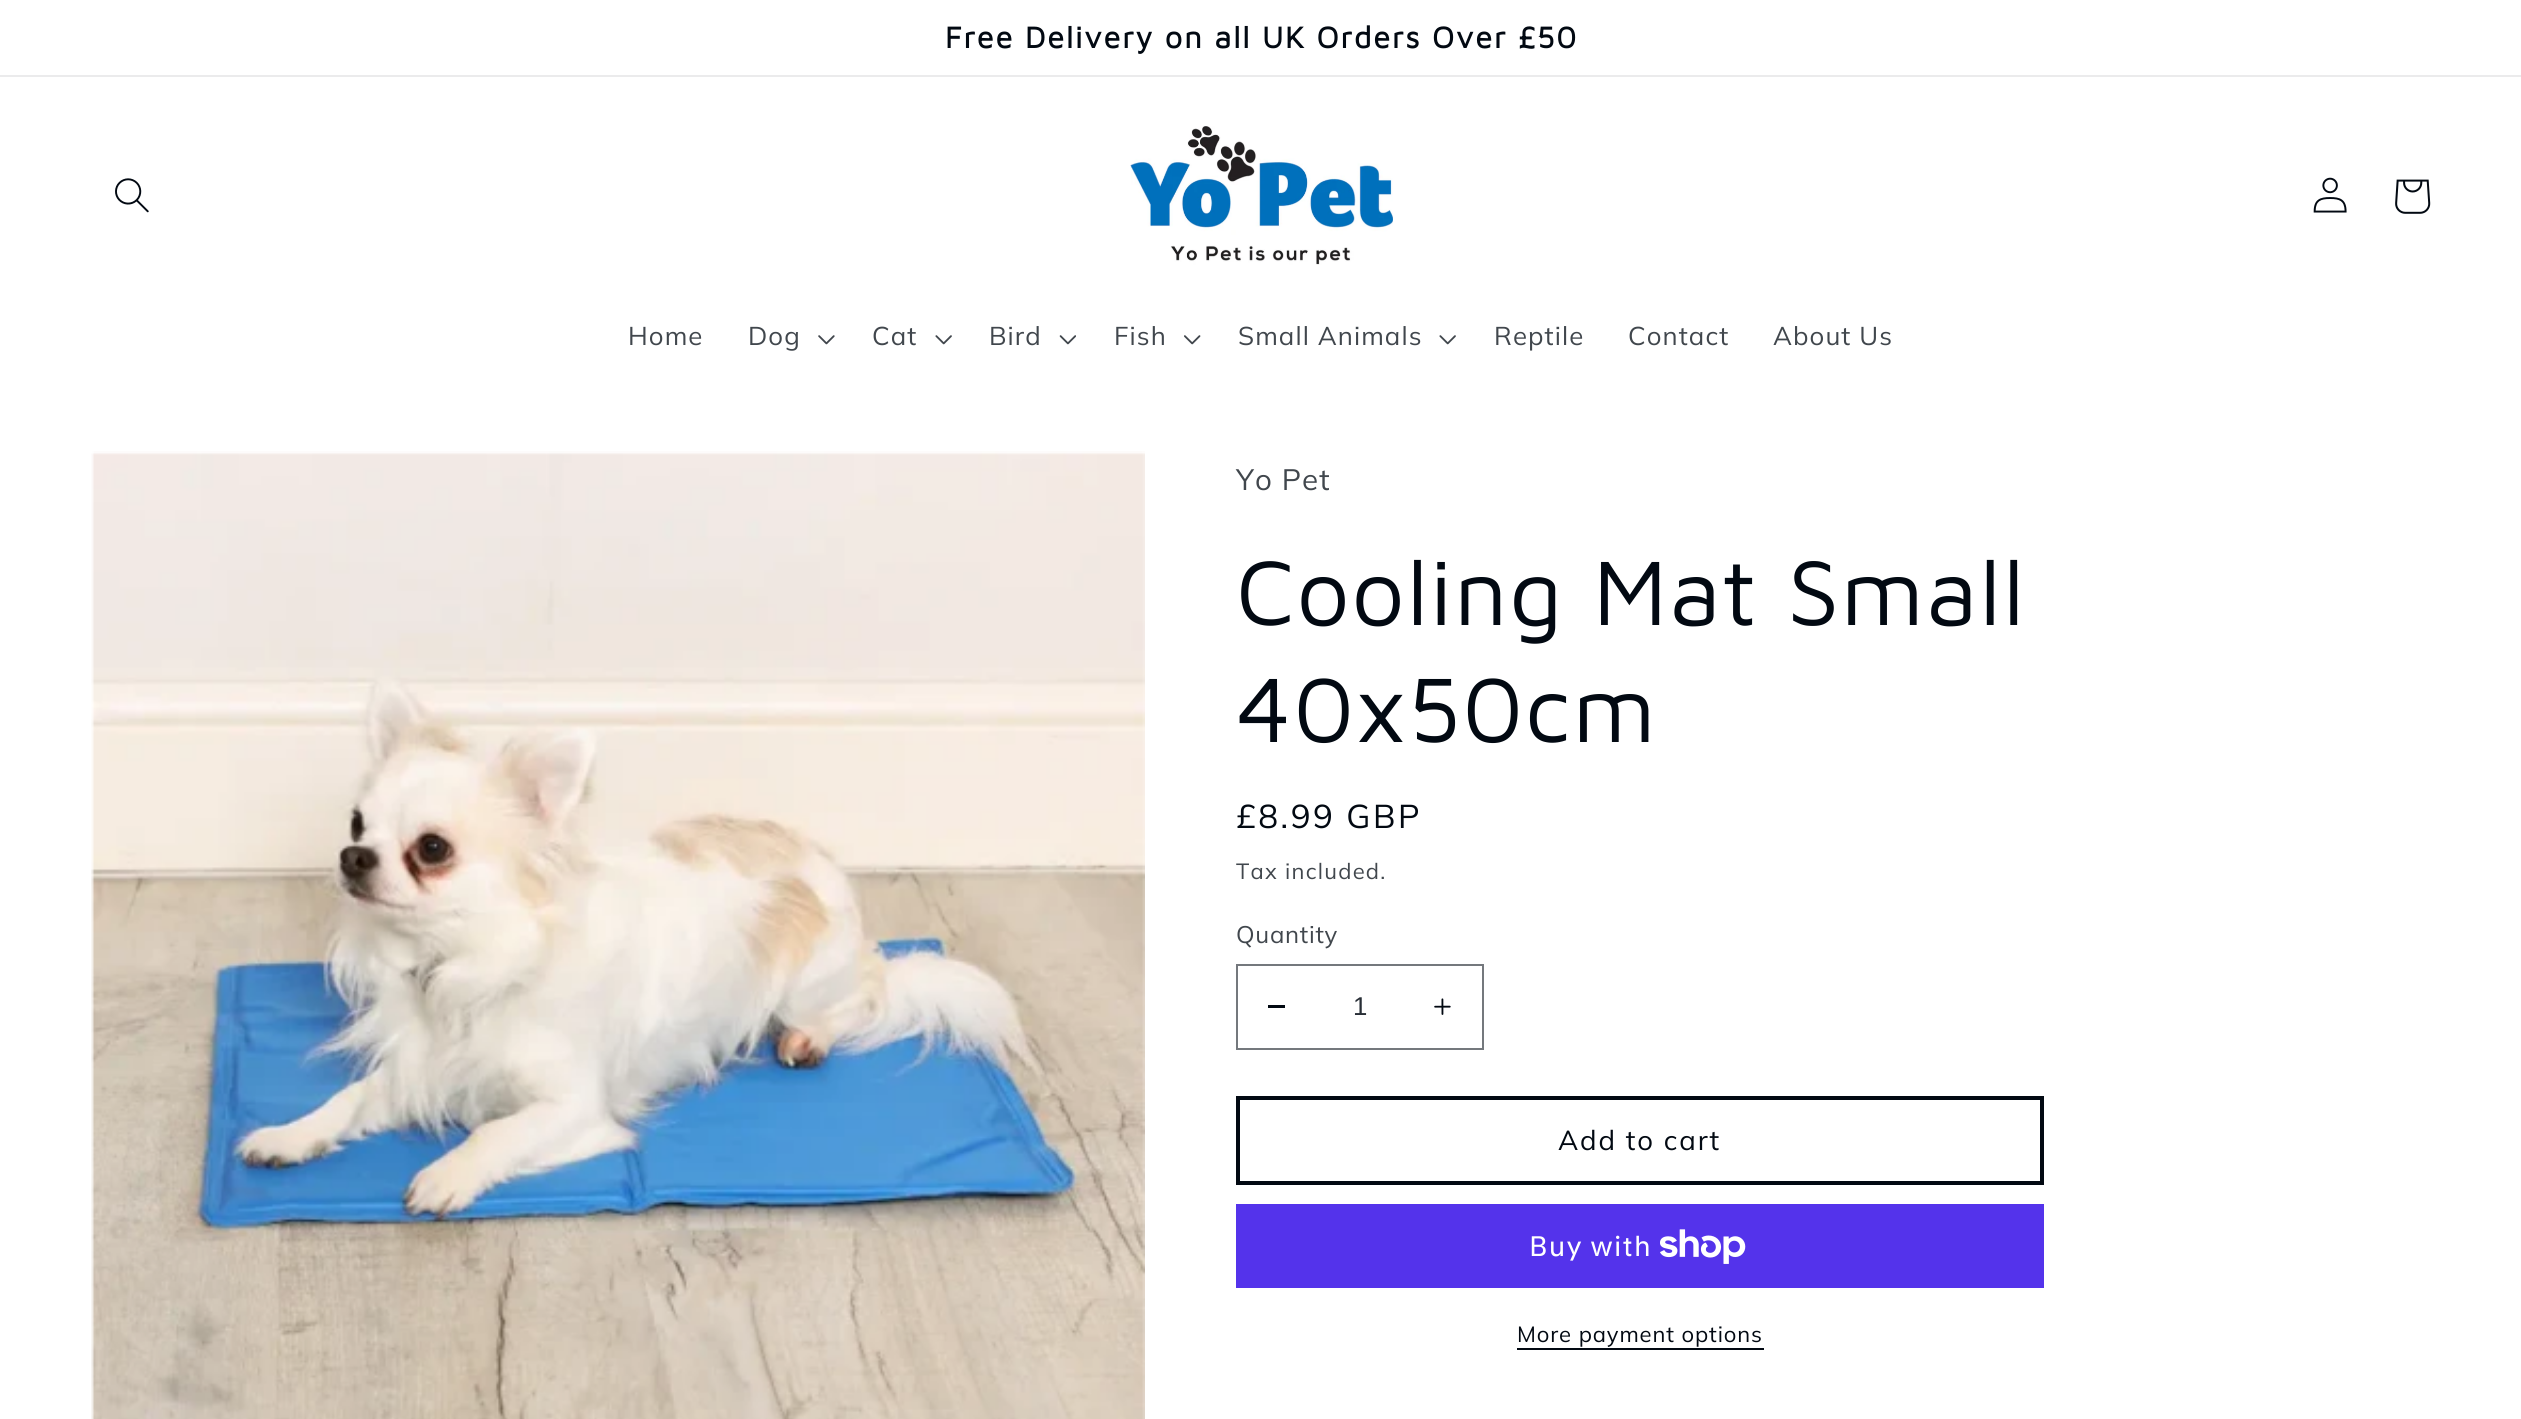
import math
import cairo

surface = cairo.ImageSurface(cairo.Format.RGB24, 2521, 1419)
ctx = cairo.Context(surface)
options = cairo.FontOptions()
options.set_hint_metrics(cairo.HintMetrics.OFF)
options.set_hint_style(cairo.HintStyle.NONE)
ctx.set_font_options(options)
ctx.set_miter_limit(4)


def ink(r, g, b):
    ctx.set_source_rgb(r / 255, g / 255, b / 255)


def write(x, y, s, family, size, color, bold=False, italic=False):
    ctx.select_font_face(family, cairo.FontSlant.ITALIC if italic else cairo.FontSlant.NORMAL, cairo.FontWeight.BOLD if bold else cairo.FontWeight.NORMAL)
    ctx.set_font_size(size)
    ink(*color)
    ctx.move_to(x, y)
    ctx.show_text(s)


def write_spaced(x, y, s, letter, word):
    ctx.move_to(x, y)
    for ch in s:
        ctx.show_text(ch)
        ctx.rel_move_to(letter + word * (ch == ' '), 0)


def block(x, y, w, h, *color):
    ink(*color)
    ctx.rectangle(x, y, w, h)
    ctx.fill()


def paste(path, x, y, w, h):
    ctx.save()
    ctx.set_source_surface(cairo.ImageSurface.create_from_png(path), x, y)
    ctx.rectangle(x, y, w, h)
    ctx.fill()
    ctx.restore()


s1 = dict(family="Liberation Sans", size=25.75, color=(40, 46, 54))

ink(255, 255, 255)
ctx.paint()
block(0, 75, 2521, 2, 235, 235, 236)
ctx.select_font_face("Maven Pro", cairo.FontSlant.NORMAL, cairo.FontWeight.BOLD)
ctx.set_font_size(30.75)
ink(2, 9, 18)
write_spaced(945, 48, "Free Delivery on all UK Orders Over £50", 1.85, 0)
paste("pic1.png", 115, 178, 34, 35)
paste("pic2.png", 1130, 126, 263, 139)
paste("pic3.png", 2313, 177, 34, 36)
paste("pic4.png", 2395, 179, 36, 35)
ctx.select_font_face("Muli")
ctx.set_font_size(25.75)
ink(65, 71, 77)
write_spaced(628, 345, "Home", 1.1, 0)
write_spaced(748, 345, "Dog", 1.1, 0)
paste("pic5.png", 818, 335, 17, 10)
write_spaced(872, 345, "Cat", 1.1, 0)
paste("pic6.png", 935, 335, 17, 10)
write_spaced(989, 345, "Bird", 1.1, 0)
paste("pic7.png", 1059, 335, 17, 10)
write_spaced(1114, 345, "Fish", 1.1, 0)
paste("pic8.png", 1184, 335, 17, 10)
write_spaced(1238, 345, "Small Animals", 1.1, 0)
paste("pic6.png", 1439, 335, 17, 10)
write_spaced(1494, 345, "Reptile", 1.1, 0)
write_spaced(1628, 345, "Contact", 1.1, 0)
write_spaced(1773, 345, "About Us", 1.1, 0)
paste("pic9.png", 91, 451, 1054, 968)
ctx.set_font_size(29.5)
write_spaced(1236, 490, "Yo Pet", 1.1, 0)
ctx.select_font_face("Maven Pro")
ctx.set_font_size(94.5)
ink(2, 9, 18)
write_spaced(1236, 625, "Cooling Mat Small", 1.4, 0)
write_spaced(1236, 742, "40x50cm", 1.4, 0)
ctx.select_font_face("Muli")
ctx.set_font_size(33)
write_spaced(1236, 828, "£8.99 GBP", 2.5, 0)
ctx.set_font_size(22)
ink(65, 71, 77)
write_spaced(1236, 879, "Tax included.", 1.25, 0)
ctx.set_font_size(24)
write_spaced(1236, 943, "Quantity", 0.75, 0)
block(1268, 1005, 17, 3, 2, 9, 18)
paste("pic10.png", 1434, 998, 17, 17)
ctx.rectangle(1237, 965, 246, 84)
ink(116, 120, 125)
ctx.stroke()
write(1353, 1015, "1", **s1)
ctx.rectangle(1238, 1098, 804, 85)
ink(2, 9, 18)
ctx.set_line_width(4)
ctx.stroke()
ctx.select_font_face("Muli")
ctx.set_font_size(27.5)
write_spaced(1558, 1150, "Add to cart", 1.85, 0)
block(1236, 1204, 808, 84, 84, 51, 235)
ctx.select_font_face("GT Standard")
ctx.set_font_size(28)
ink(255, 255, 255)
write_spaced(1529, 1256, "Buy with", 1.1, 0)
paste("pic11.png", 1660, 1229, 86, 35)
ctx.select_font_face("Muli")
ctx.set_font_size(22)
ink(2, 9, 18)
write_spaced(1517, 1342, "More payment options", 0.9, 0)
block(1517, 1348, 247, 2, 2, 9, 18)
surface.write_to_png("screenshot.png")
